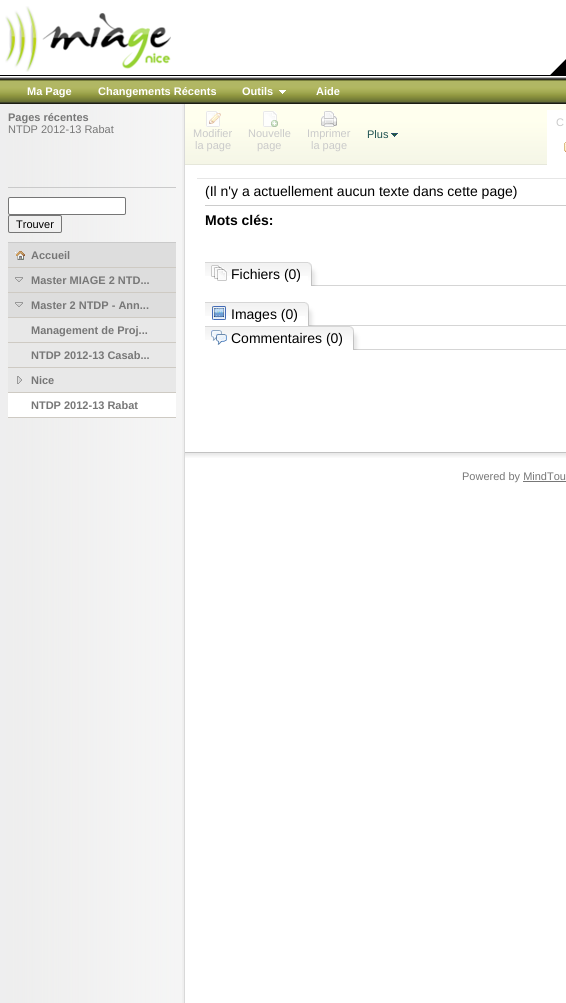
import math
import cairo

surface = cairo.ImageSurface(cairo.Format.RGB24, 566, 1003)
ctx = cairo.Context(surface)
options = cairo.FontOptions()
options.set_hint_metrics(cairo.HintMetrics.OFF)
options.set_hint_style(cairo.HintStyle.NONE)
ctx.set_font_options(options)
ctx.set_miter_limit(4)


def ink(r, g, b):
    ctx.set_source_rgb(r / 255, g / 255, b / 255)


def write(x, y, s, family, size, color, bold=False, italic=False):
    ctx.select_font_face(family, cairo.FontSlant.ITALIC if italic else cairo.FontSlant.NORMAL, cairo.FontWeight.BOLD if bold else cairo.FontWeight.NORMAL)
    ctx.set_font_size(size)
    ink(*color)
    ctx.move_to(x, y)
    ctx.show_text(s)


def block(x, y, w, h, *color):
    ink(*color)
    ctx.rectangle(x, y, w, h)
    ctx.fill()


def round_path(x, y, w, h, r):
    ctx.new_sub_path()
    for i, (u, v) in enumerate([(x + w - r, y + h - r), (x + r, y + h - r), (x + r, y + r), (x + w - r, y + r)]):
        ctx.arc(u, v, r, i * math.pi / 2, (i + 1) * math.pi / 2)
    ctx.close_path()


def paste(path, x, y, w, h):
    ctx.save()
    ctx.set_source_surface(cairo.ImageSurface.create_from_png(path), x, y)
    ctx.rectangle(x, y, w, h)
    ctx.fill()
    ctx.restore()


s1 = dict(family="Liberation Sans", size=11, color=(255, 255, 255), bold=True)
s2 = dict(family="Liberation Sans", size=11, color=(119, 119, 119), bold=True)
s3 = dict(family="Liberation Sans", size=11, color=(119, 119, 119))
s4 = dict(family="Liberation Sans", size=11, color=(0, 0, 0))
s5 = dict(family="Liberation Sans", size=11, color=(202, 202, 202))
s6 = dict(family="Liberation Sans", size=11, color=(32, 83, 82))
s7 = dict(family="Liberation Sans", size=14, color=(0, 0, 0))
s8 = dict(family="Liberation Sans", size=14, color=(0, 0, 0), bold=True)

ink(255, 255, 255)
ctx.paint()
paste("pic1.png", 0, 104, 185, 899)
paste("pic2.png", 5, 6, 166, 66)
paste("pic3.png", 550, 57, 16, 18)
paste("pic4.png", 0, 75, 566, 29)
write(27, 95, "Ma Page", **s1)
write(98, 95, "Changements Récents", **s1)
write(242, 95, "Outils", **s1)
paste("pic5.png", 279, 90, 7, 4)
write(316, 95, "Aide", **s1)
write(8, 121, "Pages récentes", **s2)
write(8, 133, "NTDP 2012-13 Rabat", **s3)
block(8, 187, 168, 1, 202, 202, 202)
block(8, 242, 168, 1, 202, 202, 202)
ink(255, 255, 255)
round_path(8.5, 197.5, 117, 17, 1.5)
ctx.fill_preserve()
ink(118, 118, 118)
ctx.set_line_width(1)
ctx.stroke()
round_path(8.5, 215.5, 53, 17, 1.5)
ctx.stroke()
write(16, 228, "Trouver", **s4)
block(8, 243, 168, 24, 221, 221, 221)
block(8, 267, 168, 1, 206, 202, 195)
paste("pic6.png", 15, 251, 10, 9)
write(31, 259, "Accueil", **s2)
block(8, 268, 168, 24, 221, 221, 221)
block(8, 292, 168, 1, 206, 202, 195)
paste("pic7.png", 15, 277, 8, 5)
write(31, 284, "Master MIAGE 2 NTD...", **s2)
block(8, 293, 168, 24, 221, 221, 221)
block(8, 317, 168, 1, 206, 202, 195)
paste("pic7.png", 15, 302, 8, 5)
write(31, 309, "Master 2 NTDP - Ann...", **s2)
block(8, 318, 168, 24, 232, 232, 232)
block(8, 342, 168, 1, 206, 202, 195)
write(31, 334, "Management de Proj...", **s2)
block(8, 343, 168, 24, 232, 232, 232)
block(8, 367, 168, 1, 206, 202, 195)
write(31, 359, "NTDP 2012-13 Casab...", **s2)
block(8, 368, 168, 24, 232, 232, 232)
block(8, 392, 168, 1, 206, 202, 195)
paste("pic8.png", 17, 376, 5, 8)
write(31, 384, "Nice", **s2)
block(8, 393, 168, 24, 255, 255, 255)
block(8, 417, 168, 1, 206, 202, 195)
write(31, 409, "NTDP 2012-13 Rabat", **s2)
paste("pic9.png", 185, 104, 381, 61)
block(547, 110, 19, 55, 255, 255, 255)
write(556, 126, "C", **s5)
paste("pic10.png", 564, 142, 2, 10)
paste("pic11.png", 206, 111, 15, 16)
write(193, 137, "Modifier", **s5)
write(195, 149, "la page", **s5)
paste("pic12.png", 263, 111, 15, 16)
write(248, 137, "Nouvelle", **s5)
write(257, 149, "page", **s5)
paste("pic13.png", 321, 111, 16, 16)
write(307, 137, "Imprimer", **s5)
write(311, 149, "la page", **s5)
write(367, 138, "Plus", **s6)
paste("pic14.png", 391, 133, 7, 4)
block(197, 178, 369, 1, 230, 230, 230)
write(205, 196, "(Il n'y a actuellement aucun texte dans cette page)", **s7)
block(205, 205, 361, 1, 204, 204, 204)
write(205, 225, "Mots clés:", **s8)
block(319, 285, 247, 1, 213, 213, 213)
paste("pic15.png", 205, 262, 103, 14)
paste("pic16.png", 308, 262, 11, 24)
paste("pic17.png", 211, 265, 16, 16)
write(231, 279, "Fichiers (0)", **s7)
block(316, 325, 250, 1, 213, 213, 213)
paste("pic18.png", 205, 302, 100, 14)
paste("pic16.png", 305, 302, 11, 24)
paste("pic19.png", 212, 306, 14, 14)
write(231, 319, "Images (0)", **s7)
block(361, 349, 205, 1, 213, 213, 213)
paste("pic20.png", 205, 326, 145, 14)
paste("pic16.png", 350, 326, 11, 24)
paste("pic21.png", 211, 330, 16, 15)
write(231, 343, "Commentaires (0)", **s7)
paste("pic22.png", 185, 452, 381, 6)
write(462, 480, "Powered by MindTou", **s3)
block(523, 481, 43, 1, 119, 119, 119)
surface.write_to_png("screenshot.png")
